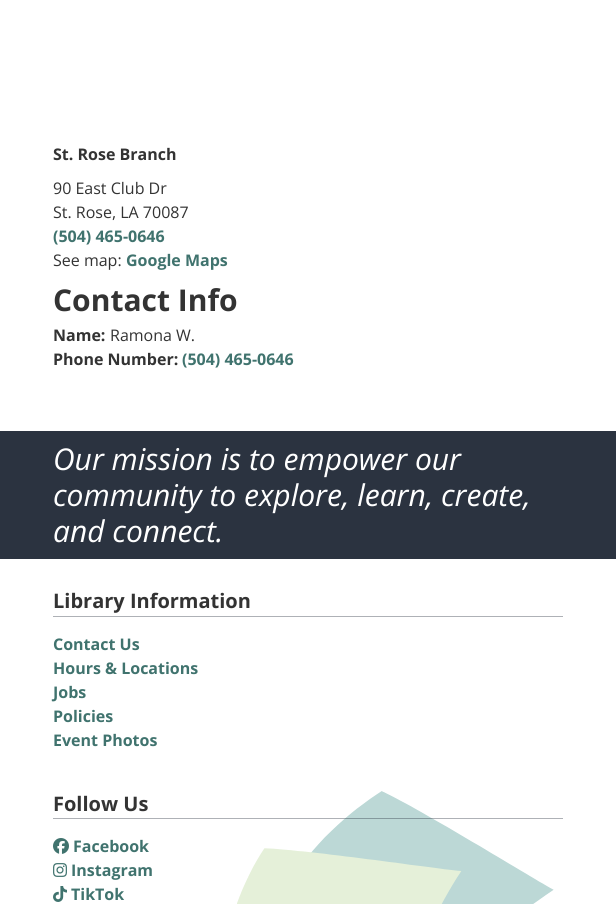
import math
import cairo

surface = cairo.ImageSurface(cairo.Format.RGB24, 616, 904)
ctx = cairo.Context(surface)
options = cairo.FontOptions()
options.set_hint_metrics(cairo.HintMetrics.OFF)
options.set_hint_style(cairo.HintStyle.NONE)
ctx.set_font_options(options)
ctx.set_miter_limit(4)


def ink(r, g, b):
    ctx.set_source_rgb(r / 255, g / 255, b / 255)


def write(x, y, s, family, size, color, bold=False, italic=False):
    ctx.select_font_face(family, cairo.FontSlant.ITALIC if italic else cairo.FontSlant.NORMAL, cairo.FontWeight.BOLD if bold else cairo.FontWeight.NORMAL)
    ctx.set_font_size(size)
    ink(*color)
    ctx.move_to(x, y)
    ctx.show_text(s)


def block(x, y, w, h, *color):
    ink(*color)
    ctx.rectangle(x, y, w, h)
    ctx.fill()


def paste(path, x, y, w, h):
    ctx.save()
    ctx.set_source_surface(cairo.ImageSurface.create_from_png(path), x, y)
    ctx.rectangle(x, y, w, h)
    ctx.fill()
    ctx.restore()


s1 = dict(family="Open Sans", size=16, color=(51, 51, 51), bold=True)
s2 = dict(family="Open Sans", size=16, color=(51, 51, 51))
s3 = dict(family="Open Sans", size=16, color=(64, 115, 110), bold=True)
s4 = dict(family="Open Sans", size=30, color=(51, 51, 51), bold=True)
s5 = dict(family="Open Sans", size=30, color=(255, 255, 255), italic=True)
s6 = dict(family="Open Sans", size=20, color=(51, 51, 51), bold=True)

ink(255, 255, 255)
ctx.paint()
write(53, 160, "St. Rose Branch", **s1)
write(53, 194, "90 East Club Dr", **s2)
write(53, 218, "St. Rose, LA 70087", **s2)
write(53, 242, "(504) 465-0646", **s3)
write(53, 266, "See map:", **s2)
write(126, 266, "Google Maps", **s3)
write(53, 311, "Contact Info", **s4)
write(53, 341, "Name:", **s1)
write(110, 341, "Ramona W.", **s2)
write(53, 365, "Phone Number:", **s1)
write(182, 365, "(504) 465-0646", **s3)
block(0, 431, 616, 128, 43, 51, 64)
write(53, 470, "Our mission is to empower our", **s5)
write(53, 506, "community to explore, learn, create,", **s5)
write(53, 542, "and connect.", **s5)
paste("pic1.png", 237, 791, 317, 113)
block(53, 616, 510, 1, 174, 177, 182)
write(53, 608, "Library Information", **s6)
write(53, 650, "Contact Us", **s3)
write(53, 674, "Hours & Locations", **s3)
write(53, 698, "Jobs", **s3)
write(53, 722, "Policies", **s3)
write(53, 746, "Event Photos", **s3)
ctx.set_source_rgba(0.169, 0.2, 0.251, 0.38)
ctx.rectangle(53, 818, 510, 1)
ctx.fill()
write(53, 811, "Follow Us", **s6)
paste("pic2.png", 53, 838, 16, 16)
write(73, 852, "Facebook", **s3)
paste("pic3.png", 53, 863, 14, 14)
write(71, 876, "Instagram", **s3)
paste("pic4.png", 53, 886, 14, 16)
write(71, 900, "TikTok", **s3)
surface.write_to_png("screenshot.png")
